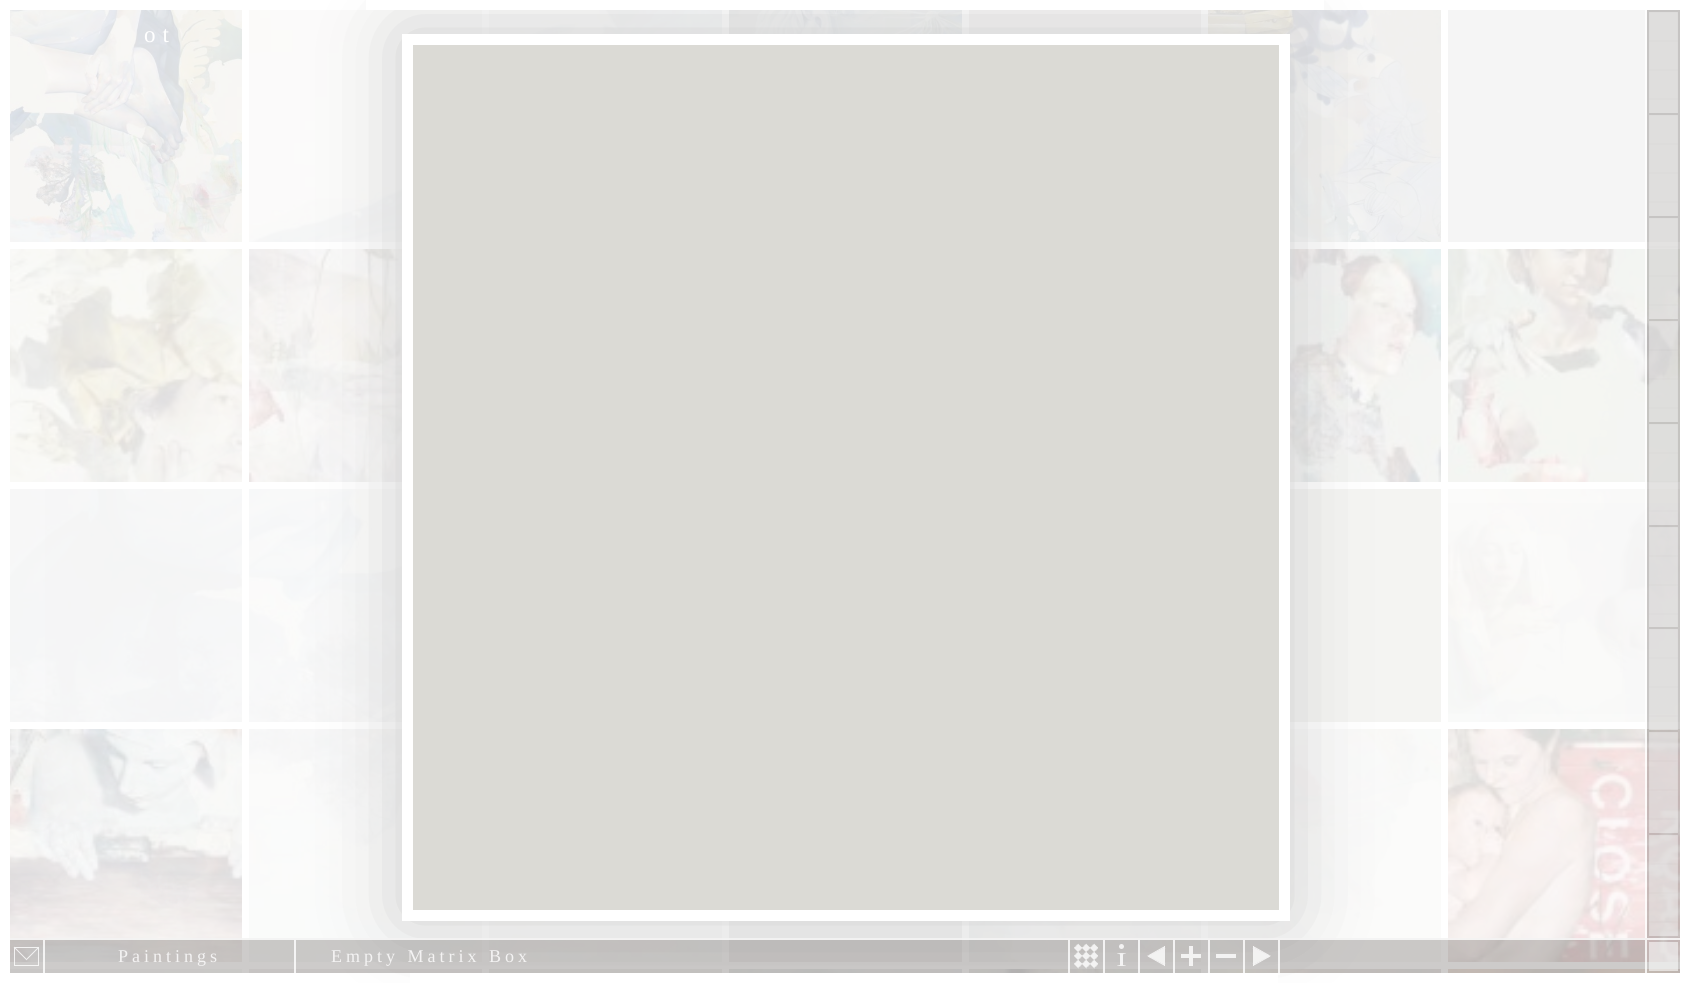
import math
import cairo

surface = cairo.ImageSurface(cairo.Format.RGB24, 1690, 983)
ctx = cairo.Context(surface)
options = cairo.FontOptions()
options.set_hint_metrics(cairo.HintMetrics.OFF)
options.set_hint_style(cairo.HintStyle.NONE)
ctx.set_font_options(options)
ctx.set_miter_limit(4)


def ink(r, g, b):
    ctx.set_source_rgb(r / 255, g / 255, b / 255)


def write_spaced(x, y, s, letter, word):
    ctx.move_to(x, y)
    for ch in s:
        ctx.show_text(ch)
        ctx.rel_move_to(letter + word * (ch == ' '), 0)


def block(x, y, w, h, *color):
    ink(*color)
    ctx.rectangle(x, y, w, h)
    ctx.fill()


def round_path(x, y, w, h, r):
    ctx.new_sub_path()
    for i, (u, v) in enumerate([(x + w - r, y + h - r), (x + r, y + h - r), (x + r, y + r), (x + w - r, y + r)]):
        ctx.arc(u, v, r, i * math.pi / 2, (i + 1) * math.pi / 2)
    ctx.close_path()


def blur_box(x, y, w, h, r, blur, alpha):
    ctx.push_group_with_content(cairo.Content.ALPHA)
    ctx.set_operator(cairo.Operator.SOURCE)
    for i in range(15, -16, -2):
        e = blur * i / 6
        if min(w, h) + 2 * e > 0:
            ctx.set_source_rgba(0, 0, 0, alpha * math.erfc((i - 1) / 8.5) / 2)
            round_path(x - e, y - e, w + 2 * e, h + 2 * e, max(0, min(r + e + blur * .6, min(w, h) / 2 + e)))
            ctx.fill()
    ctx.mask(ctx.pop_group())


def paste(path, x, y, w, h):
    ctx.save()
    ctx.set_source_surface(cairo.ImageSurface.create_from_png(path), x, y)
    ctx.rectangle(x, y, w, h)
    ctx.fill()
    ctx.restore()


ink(255, 255, 255)
ctx.paint()
paste("pic17.png", 10, 10, 1670, 963)
block(482, 2, 7, 32, 255, 255, 255)
block(722, 2, 7, 32, 255, 255, 255)
paste("pic2.png", 729, 10, 233, 24)
block(962, 2, 7, 32, 255, 255, 255)
block(969, 10, 232, 24, 245, 244, 244)
block(1201, 2, 7, 32, 255, 255, 255)
paste("pic3.png", 1208, 10, 233, 232)
block(242, 242, 160, 7, 255, 255, 255)
paste("pic5.png", 249, 249, 153, 233)
block(1441, 242, 247, 7, 255, 255, 255)
block(1441, 482, 247, 7, 255, 255, 255)
block(1441, 722, 247, 7, 255, 255, 255)
block(1441, 962, 247, 7, 255, 255, 255)
block(1441, 962, 7, 11, 255, 255, 255)
block(1201, 962, 247, 7, 255, 255, 255)
block(1441, 722, 7, 247, 255, 255, 255)
block(1290, 722, 158, 7, 255, 255, 255)
block(1441, 482, 7, 247, 255, 255, 255)
block(1290, 482, 158, 7, 255, 255, 255)
block(1441, 242, 7, 247, 255, 255, 255)
block(1290, 242, 158, 7, 255, 255, 255)
paste("pic6.png", 1290, 249, 151, 233)
block(242, 482, 160, 7, 255, 255, 255)
block(1290, 489, 151, 233, 244, 244, 242)
block(242, 722, 160, 7, 255, 255, 255)
block(1201, 962, 7, 11, 255, 255, 255)
block(962, 962, 246, 7, 255, 255, 255)
block(962, 962, 7, 11, 255, 255, 255)
block(722, 962, 247, 7, 255, 255, 255)
block(722, 962, 7, 11, 255, 255, 255)
block(482, 962, 247, 7, 255, 255, 255)
block(482, 962, 7, 11, 255, 255, 255)
block(242, 962, 247, 7, 255, 255, 255)
block(482, 921, 7, 48, 255, 255, 255)
block(722, 921, 7, 48, 255, 255, 255)
block(729, 921, 233, 41, 243, 242, 242)
block(962, 921, 7, 48, 255, 255, 255)
paste("pic11.png", 969, 921, 232, 41)
block(1201, 921, 7, 48, 255, 255, 255)
block(249, 969, 233, 4, 245, 244, 244)
block(489, 969, 233, 4, 244, 244, 242)
paste("pic13.png", 729, 969, 233, 4)
paste("pic14.png", 969, 969, 232, 4)
paste("pic15.png", 1208, 969, 233, 4)
ink(204, 204, 204)
blur_box(402, 34, 886, 885, 0, 40, 1)
block(402, 34, 888, 887, 255, 255, 255)
block(413, 45, 866, 865, 219, 218, 213)
block(366, 0, 958, 10, 255, 255, 255)
paste("pic1.png", 10, 10, 232, 232)
block(242, 962, 7, 11, 255, 255, 255)
block(2, 962, 247, 7, 255, 255, 255)
block(242, 722, 7, 247, 255, 255, 255)
block(2, 722, 247, 7, 255, 255, 255)
block(242, 482, 7, 247, 255, 255, 255)
block(2, 482, 247, 7, 255, 255, 255)
block(242, 242, 7, 247, 255, 255, 255)
block(2, 242, 247, 7, 255, 255, 255)
block(242, 2, 7, 247, 255, 255, 255)
block(1441, 2, 7, 247, 255, 255, 255)
block(1448, 10, 232, 232, 245, 245, 245)
paste("pic4.png", 10, 249, 232, 233)
paste("pic7.png", 1448, 249, 232, 233)
paste("pic8.png", 45, 489, 197, 233)
paste("pic9.png", 1448, 503, 232, 211)
paste("pic10.png", 10, 729, 232, 233)
paste("pic12.png", 1448, 729, 232, 233)
paste("pic16.png", 1448, 969, 232, 4)
ctx.select_font_face("Liberation Serif")
ctx.set_font_size(23)
ink(255, 255, 255)
write_spaced(144, 42, "ot", 7, 0)
ctx.set_source_rgba(1, 1, 1, 0.8)
ctx.rectangle(1645, 10, 2, 928)
ctx.fill()
paste("pic18.png", 1647, 10, 33, 928)
paste("pic19.png", 1649, 12, 29, 101)
paste("pic20.png", 1649, 115, 29, 101)
paste("pic21.png", 1649, 218, 29, 101)
paste("pic22.png", 1649, 321, 29, 101)
paste("pic23.png", 1649, 424, 29, 101)
paste("pic24.png", 1649, 527, 29, 100)
paste("pic25.png", 1649, 629, 29, 101)
paste("pic26.png", 1649, 732, 29, 101)
paste("pic27.png", 1649, 835, 29, 101)
paste("pic28.png", 10, 938, 1670, 35)
ctx.rectangle(10, 938, 1670, 2)
ctx.fill()
ctx.rectangle(43, 940, 2, 35)
ctx.fill()
paste("pic29.png", 13, 946, 26, 20)
ctx.rectangle(294, 940, 2, 35)
ctx.fill()
ctx.set_font_size(18)
ink(244, 243, 243)
write_spaced(118, 962, "Paintings", 4, 0)
write_spaced(331, 962, "Empty Matrix Box", 4, 0)
ctx.set_source_rgba(1, 1, 1, 0.8)
ctx.rectangle(1068, 940, 2, 35)
ctx.fill()
paste("pic30.png", 1074, 943, 24, 26)
ctx.rectangle(1103, 940, 2, 35)
ctx.fill()
paste("pic31.png", 1117, 944, 9, 22)
ctx.rectangle(1138, 940, 2, 35)
ctx.fill()
paste("pic32.png", 1147, 946, 19, 20)
ctx.rectangle(1173, 940, 2, 35)
ctx.fill()
paste("pic33.png", 1181, 946, 20, 20)
ctx.rectangle(1208, 940, 2, 35)
ctx.fill()
block(1216, 954, 20, 4, 243, 243, 243)
ctx.set_source_rgba(1, 1, 1, 0.8)
ctx.rectangle(1243, 940, 2, 35)
ctx.fill()
paste("pic34.png", 1252, 946, 19, 20)
ctx.rectangle(1278, 940, 2, 35)
ctx.fill()
ctx.rectangle(1645, 940, 2, 35)
ctx.fill()
ctx.set_source_rgba(1, 1, 1, 0.55)
ctx.rectangle(1649, 942, 29, 29)
ctx.fill()
block(410, 973, 868, 10, 255, 255, 255)
surface.write_to_png("screenshot.png")
